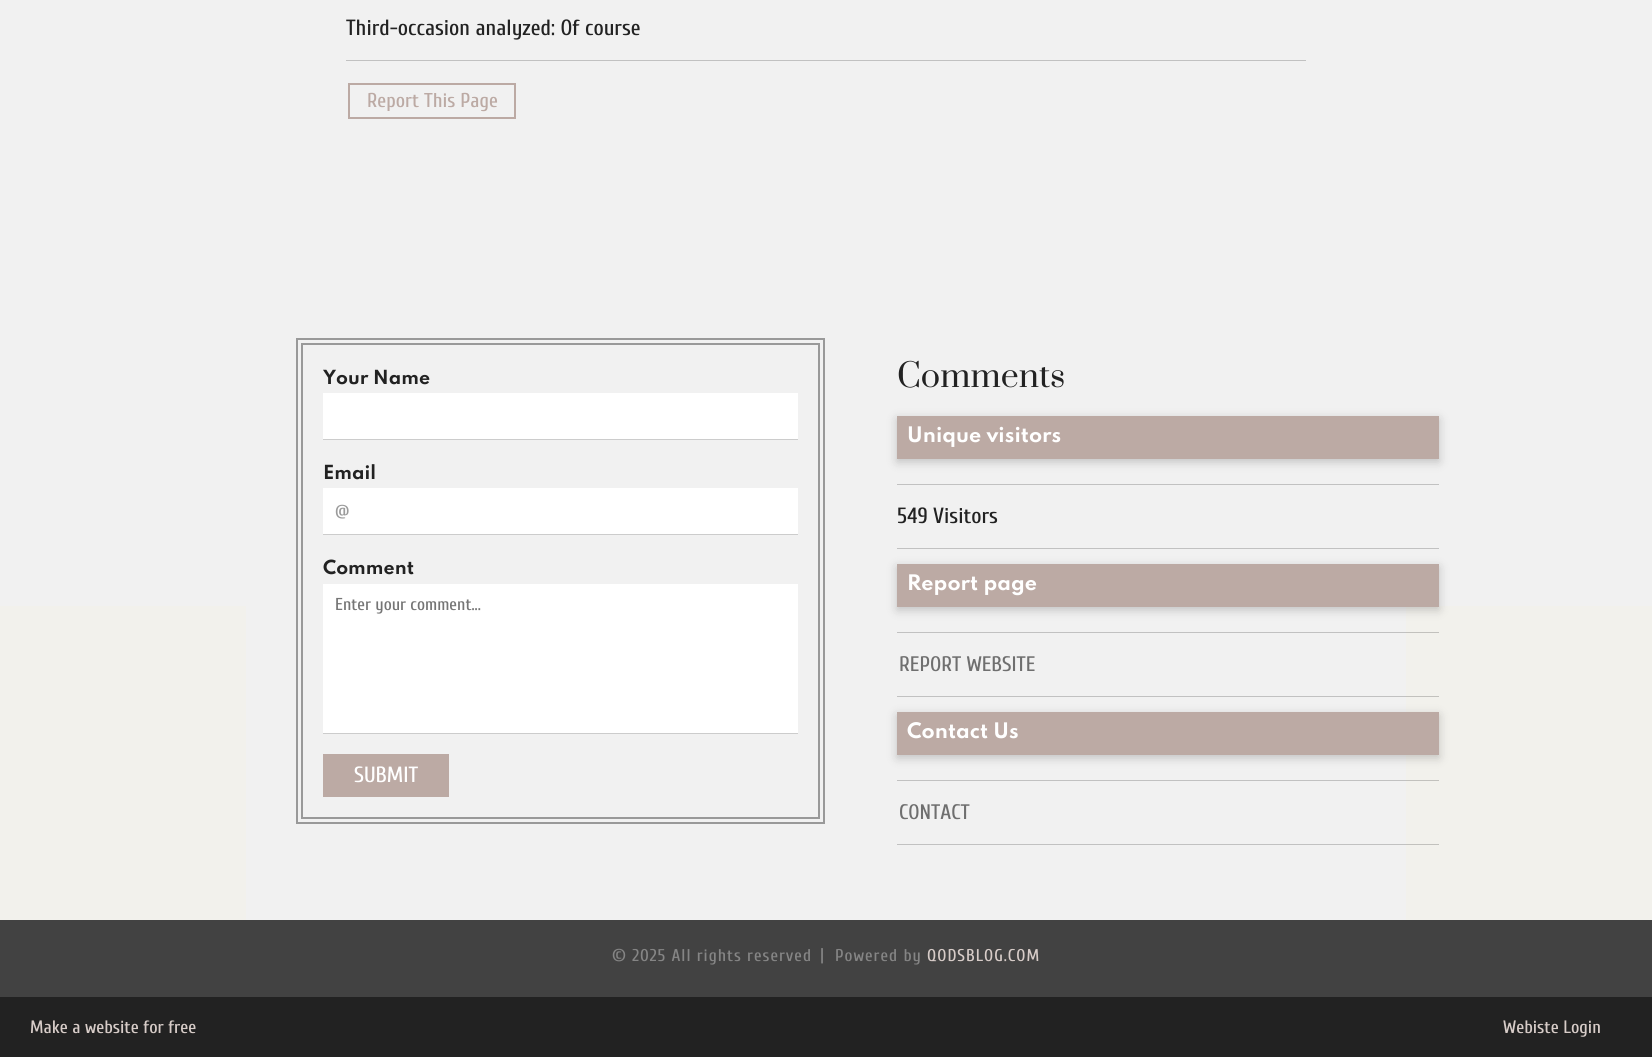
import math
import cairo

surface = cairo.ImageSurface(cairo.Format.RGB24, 1652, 1057)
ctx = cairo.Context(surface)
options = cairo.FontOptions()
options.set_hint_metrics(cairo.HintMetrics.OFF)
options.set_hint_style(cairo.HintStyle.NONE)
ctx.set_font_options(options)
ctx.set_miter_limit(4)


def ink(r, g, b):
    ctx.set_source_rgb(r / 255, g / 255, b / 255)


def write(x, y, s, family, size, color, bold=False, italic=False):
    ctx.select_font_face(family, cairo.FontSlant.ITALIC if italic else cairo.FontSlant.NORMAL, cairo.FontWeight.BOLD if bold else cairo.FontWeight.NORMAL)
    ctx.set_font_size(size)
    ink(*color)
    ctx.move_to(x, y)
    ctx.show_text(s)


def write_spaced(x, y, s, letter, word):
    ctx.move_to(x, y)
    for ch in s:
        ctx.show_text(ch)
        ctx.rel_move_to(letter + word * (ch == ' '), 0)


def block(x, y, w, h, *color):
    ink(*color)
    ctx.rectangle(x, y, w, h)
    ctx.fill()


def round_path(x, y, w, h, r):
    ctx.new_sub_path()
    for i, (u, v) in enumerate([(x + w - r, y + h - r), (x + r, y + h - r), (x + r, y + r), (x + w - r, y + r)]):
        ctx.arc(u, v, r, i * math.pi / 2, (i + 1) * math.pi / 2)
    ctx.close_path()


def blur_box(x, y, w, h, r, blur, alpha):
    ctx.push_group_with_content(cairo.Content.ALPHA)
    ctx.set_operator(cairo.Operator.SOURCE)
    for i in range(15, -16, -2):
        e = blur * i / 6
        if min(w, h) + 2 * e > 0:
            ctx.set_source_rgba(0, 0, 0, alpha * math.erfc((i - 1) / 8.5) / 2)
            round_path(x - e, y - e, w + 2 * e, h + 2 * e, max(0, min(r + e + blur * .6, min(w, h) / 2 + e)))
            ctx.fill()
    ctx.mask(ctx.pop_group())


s1 = dict(family="Cuprum Medium", size=22, color=(34, 34, 34))
s2 = dict(family="Cuprum Medium", size=20, color=(188, 170, 164))
s3 = dict(family="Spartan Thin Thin", size=17.25, color=(34, 34, 34))
s4 = dict(family="Cuprum Medium", size=17.25, color=(155, 155, 155))
s5 = dict(family="Cuprum Medium", size=17.25, color=(117, 117, 117))
s6 = dict(family="Cuprum Medium", size=22, color=(255, 255, 255))
s7 = dict(family="Prata", size=32, color=(34, 34, 34))
s8 = dict(family="Spartan Thin Thin", size=19, color=(255, 255, 255))
s9 = dict(family="Cuprum Medium", size=21, color=(111, 111, 111))
s10 = dict(family="Cuprum Medium", size=18, color=(215, 204, 200))

ink(241, 241, 241)
ctx.paint()
block(346, 60, 960, 1, 193, 193, 193)
write(346, 35, "Third-occasion analyzed: Of course", **s1)
ctx.rectangle(349, 84, 166, 34)
ink(188, 170, 164)
ctx.stroke()
write(367, 107, "Report This Page", **s2)
block(0, 606, 1652, 314, 242, 241, 236)
block(246, 606, 1160, 314, 241, 241, 241)
ctx.rectangle(297, 339, 527, 484)
ink(153, 153, 153)
ctx.stroke()
ctx.rectangle(302, 344, 517, 474)
ctx.stroke()
write(323, 384, "Your Name", **s3)
block(323, 393, 475, 46, 255, 255, 255)
block(323, 439, 475, 1, 204, 204, 204)
write(323, 479, "Email", **s3)
block(323, 488, 475, 46, 255, 255, 255)
block(323, 534, 475, 1, 204, 204, 204)
write(335, 517, "@", **s4)
write(323, 574, "Comment", **s3)
block(323, 584, 475, 149, 255, 255, 255)
block(323, 733, 475, 1, 204, 204, 204)
write(335, 610, "Enter your comment...", **s5)
block(323, 754, 126, 43, 188, 170, 164)
write(354, 782, "SUBMIT", **s6)
write(897, 387, "Comments", **s7)
ink(0, 0, 0)
blur_box(897, 419, 542, 43, 0, 5, 0.2)
block(897, 416, 542, 43, 188, 170, 164)
write(907, 442, "Unique visitors", **s8)
block(897, 484, 542, 1, 193, 193, 193)
block(897, 548, 542, 1, 193, 193, 193)
write(897, 523, "549 Visitors", **s1)
ink(0, 0, 0)
blur_box(897, 567, 542, 43, 0, 5, 0.2)
block(897, 564, 542, 43, 188, 170, 164)
write(907, 590, "Report page", **s8)
write(899, 671, "REPORT WEBSITE", **s9)
ink(0, 0, 0)
blur_box(897, 715, 542, 43, 0, 5, 0.2)
block(897, 712, 542, 43, 188, 170, 164)
write(907, 738, "Contact Us", **s8)
write(899, 819, "CONTACT", **s9)
block(1406, 844, 33, 1, 194, 193, 189)
block(1406, 780, 33, 1, 194, 193, 189)
block(1406, 696, 33, 1, 194, 193, 189)
block(1406, 632, 33, 1, 194, 193, 189)
block(897, 844, 509, 1, 193, 193, 193)
block(897, 780, 509, 1, 193, 193, 193)
block(897, 696, 509, 1, 193, 193, 193)
block(897, 632, 509, 1, 193, 193, 193)
block(0, 920, 1652, 77, 66, 66, 66)
ctx.set_font_size(17)
ink(133, 133, 133)
write_spaced(612, 961, "© 2025 All rights reserved", 1, 0)
write_spaced(820, 960, "|", 1, 0)
write_spaced(835, 961, "Powered by", 1, 0)
ink(215, 204, 200)
write_spaced(927, 961, "QODSBLOG.COM", 1, 0)
block(0, 997, 1652, 60, 34, 34, 34)
write(30, 1033, "Make a website for free", **s10)
write(1503, 1033, "Webiste Login", **s10)
surface.write_to_png("screenshot.png")
